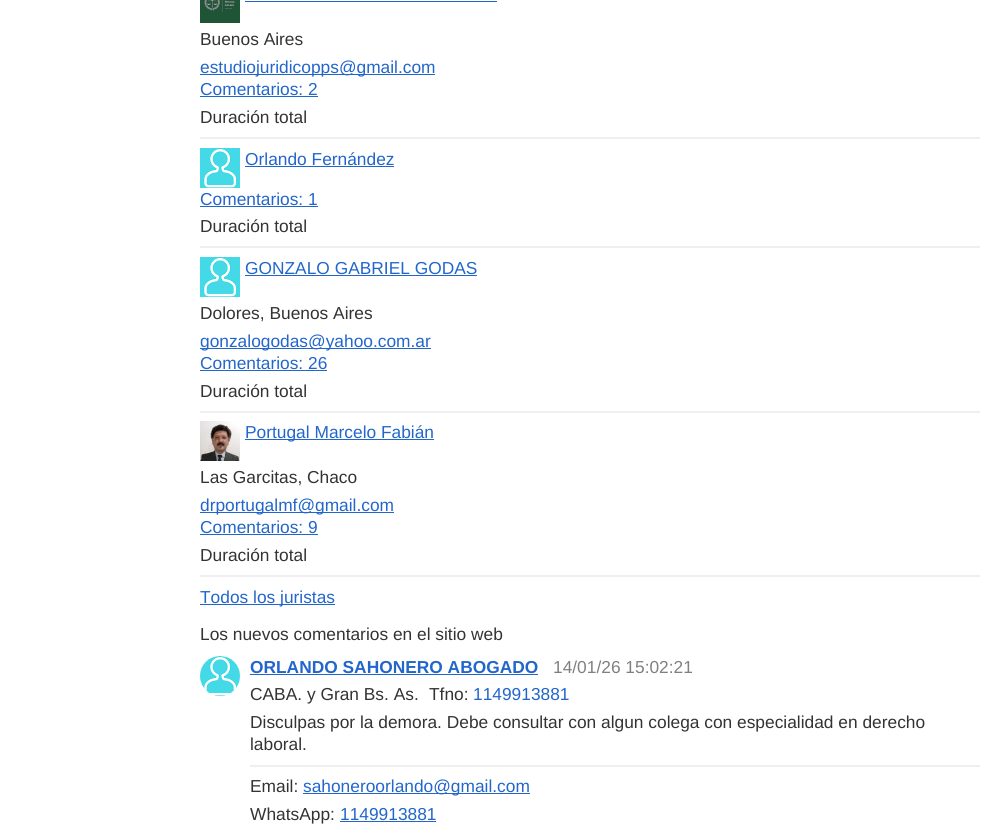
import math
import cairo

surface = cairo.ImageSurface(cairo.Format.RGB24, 985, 830)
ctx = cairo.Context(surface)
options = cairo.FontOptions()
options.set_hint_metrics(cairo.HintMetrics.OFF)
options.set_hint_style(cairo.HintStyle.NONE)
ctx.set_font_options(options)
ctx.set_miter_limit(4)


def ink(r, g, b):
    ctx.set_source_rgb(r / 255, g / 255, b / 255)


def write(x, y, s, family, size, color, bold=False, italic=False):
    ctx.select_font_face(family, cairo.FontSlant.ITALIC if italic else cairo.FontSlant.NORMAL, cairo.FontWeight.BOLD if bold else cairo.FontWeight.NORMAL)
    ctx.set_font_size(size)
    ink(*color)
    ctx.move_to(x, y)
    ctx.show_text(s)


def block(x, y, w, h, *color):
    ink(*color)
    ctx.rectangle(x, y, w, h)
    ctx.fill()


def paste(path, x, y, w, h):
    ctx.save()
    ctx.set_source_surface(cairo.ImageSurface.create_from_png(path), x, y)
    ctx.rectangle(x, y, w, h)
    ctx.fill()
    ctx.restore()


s1 = dict(family="Liberation Sans", size=17.35, color=(51, 51, 51))
s2 = dict(family="Liberation Sans", size=17.35, color=(34, 102, 204))
s3 = dict(family="Liberation Sans", size=17.35, color=(34, 102, 204), bold=True)
s4 = dict(family="Liberation Sans", size=17.35, color=(128, 128, 128))

ink(255, 255, 255)
ctx.paint()
paste("pic1.png", 200, 0, 40, 23)
block(245, 1, 252, 1, 34, 102, 204)
write(200, 45, "Buenos Aires", **s1)
block(200, 74, 235, 1, 34, 102, 204)
write(200, 73, "estudiojuridicopps@gmail.com", **s2)
write(200, 95, "Сomentarios: 2", **s2)
block(200, 96, 118, 1, 34, 102, 204)
write(200, 123, "Duración total", **s1)
block(200, 137, 780, 2, 239, 239, 239)
paste("pic2.png", 200, 148, 40, 40)
write(245, 165, "Orlando Fernández", **s2)
block(245, 166, 149, 1, 34, 102, 204)
write(200, 205, "Сomentarios: 1", **s2)
block(200, 206, 118, 1, 34, 102, 204)
write(200, 232, "Duración total", **s1)
block(200, 246, 780, 2, 239, 239, 239)
paste("pic2.png", 200, 257, 40, 40)
write(245, 274, "GONZALO GABRIEL GODAS", **s2)
block(245, 275, 232, 1, 34, 102, 204)
write(200, 319, "Dolores, Buenos Aires", **s1)
block(200, 348, 231, 1, 34, 102, 204)
write(200, 347, "gonzalogodas@yahoo.com.ar", **s2)
write(200, 369, "Сomentarios: 26", **s2)
block(200, 370, 127, 1, 34, 102, 204)
write(200, 397, "Duración total", **s1)
block(200, 411, 780, 2, 239, 239, 239)
paste("pic3.png", 200, 421, 40, 40)
block(245, 439, 189, 1, 34, 102, 204)
write(245, 438, "Portugal Marcelo Fabián", **s2)
write(200, 483, "Las Garcitas, Chaco", **s1)
block(200, 512, 194, 1, 34, 102, 204)
write(200, 511, "drportugalmf@gmail.com", **s2)
write(200, 533, "Сomentarios: 9", **s2)
block(200, 534, 118, 1, 34, 102, 204)
write(200, 561, "Duración total", **s1)
block(200, 575, 780, 2, 239, 239, 239)
block(200, 604, 135, 1, 34, 102, 204)
write(200, 603, "Todos los juristas", **s2)
write(200, 640, "Los nuevos comentarios en el sitio web", **s1)
paste("pic4.png", 200, 656, 40, 40)
write(250, 673, "ORLANDO SAHONERO ABOGADO", **s3)
block(250, 674, 288, 1, 34, 102, 204)
write(553, 673, "14/01/26 15:02:21", **s4)
write(250, 700, "CABA. y Gran Bs. As.", **s1)
write(429, 700, "Tfno:", **s1)
write(473, 700, "1149913881", **s2)
write(250, 728, "Disculpas por la demora. Debe consultar con algun colega con especialidad en derecho", **s1)
write(250, 750, "laboral.", **s1)
block(250, 765, 730, 2, 239, 239, 239)
write(250, 792, "Email:", **s1)
block(303, 793, 227, 1, 34, 102, 204)
write(303, 792, "sahoneroorlando@gmail.com", **s2)
write(250, 820, "WhatsApp:", **s1)
write(340, 820, "1149913881", **s2)
block(340, 821, 96, 1, 34, 102, 204)
surface.write_to_png("screenshot.png")
